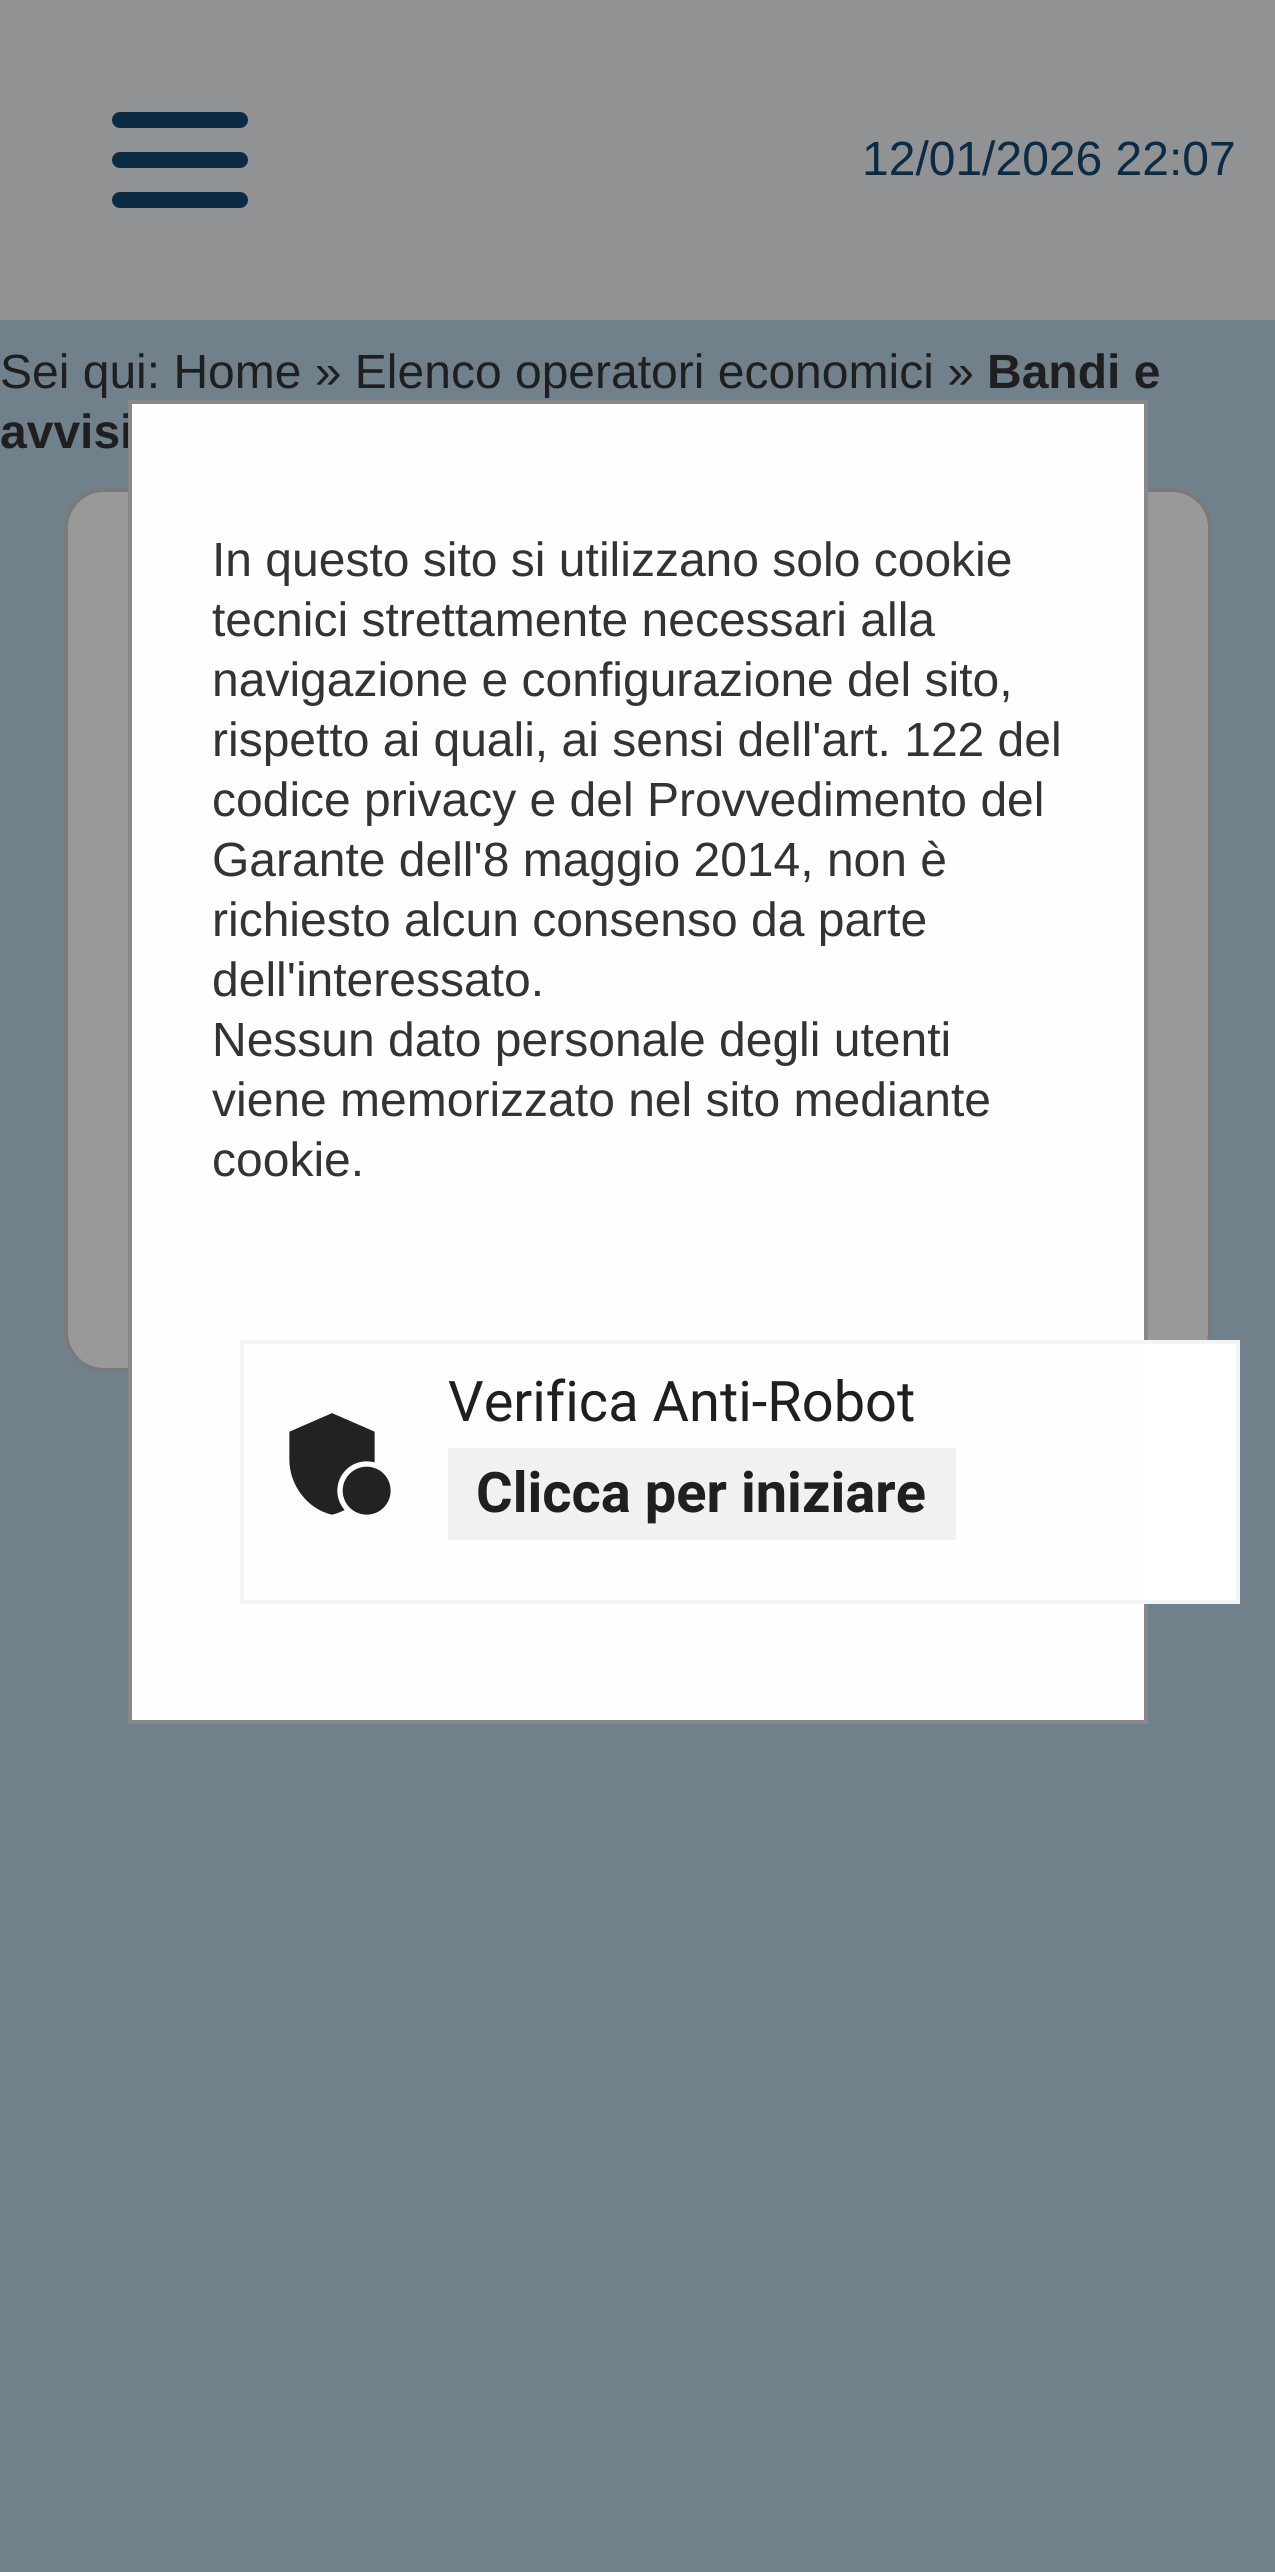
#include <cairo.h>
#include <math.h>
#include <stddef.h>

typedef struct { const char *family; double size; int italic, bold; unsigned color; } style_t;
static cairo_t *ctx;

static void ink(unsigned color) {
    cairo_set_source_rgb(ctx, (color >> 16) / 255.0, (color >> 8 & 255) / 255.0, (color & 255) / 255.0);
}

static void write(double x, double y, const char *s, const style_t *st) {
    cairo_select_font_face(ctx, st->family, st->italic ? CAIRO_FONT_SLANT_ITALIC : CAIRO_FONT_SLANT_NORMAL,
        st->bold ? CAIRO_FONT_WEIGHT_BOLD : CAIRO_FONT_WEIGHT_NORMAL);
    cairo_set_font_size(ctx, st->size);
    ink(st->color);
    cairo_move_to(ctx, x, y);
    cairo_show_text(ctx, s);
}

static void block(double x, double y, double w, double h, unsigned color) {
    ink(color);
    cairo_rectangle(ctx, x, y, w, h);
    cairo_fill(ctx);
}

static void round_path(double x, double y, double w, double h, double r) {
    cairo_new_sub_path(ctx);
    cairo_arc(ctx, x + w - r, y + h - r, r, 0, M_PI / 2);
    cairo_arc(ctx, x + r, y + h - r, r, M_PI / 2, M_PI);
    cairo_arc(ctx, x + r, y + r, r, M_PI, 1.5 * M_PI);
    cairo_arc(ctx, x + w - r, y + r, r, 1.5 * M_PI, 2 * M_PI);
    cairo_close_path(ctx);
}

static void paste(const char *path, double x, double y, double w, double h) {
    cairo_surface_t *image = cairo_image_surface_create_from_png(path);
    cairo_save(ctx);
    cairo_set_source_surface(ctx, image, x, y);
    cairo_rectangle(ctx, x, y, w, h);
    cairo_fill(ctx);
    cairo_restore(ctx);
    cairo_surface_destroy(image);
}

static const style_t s1 = {"Liberation Sans", 48, 0, 0, 0x0c2b45};
static const style_t s2 = {"Liberation Sans", 48, 0, 0, 0x1f1f1f};
static const style_t s3 = {"Liberation Sans", 48, 0, 1, 0x1f1f1f};
static const style_t s4 = {"Liberation Sans", 48, 0, 0, 0x333333};
static const style_t s5 = {"Roboto", 56, 0, 0, 0x1f1f1f};
static const style_t s6 = {"Roboto", 56, 0, 1, 0x1f1f1f};

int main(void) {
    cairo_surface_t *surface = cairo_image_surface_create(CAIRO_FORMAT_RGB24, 1275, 2572);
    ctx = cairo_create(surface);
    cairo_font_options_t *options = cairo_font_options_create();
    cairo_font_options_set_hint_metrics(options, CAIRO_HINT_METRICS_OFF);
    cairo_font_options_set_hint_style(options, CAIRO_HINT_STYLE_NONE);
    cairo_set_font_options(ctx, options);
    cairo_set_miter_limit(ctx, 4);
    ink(0x70818b);
    cairo_paint(ctx);
    block(0, 0, 1275, 320, 0x909294);
    ink(0x0c2b45);
    round_path(112, 112, 136, 16, 8);
    cairo_fill(ctx);
    round_path(112, 152, 136, 16, 8);
    cairo_fill(ctx);
    round_path(112, 192, 136, 16, 8);
    cairo_fill(ctx);
    write(862, 175, "12/01/2026 22:07", &s1);
    write(0, 388, "Sei qui: Home » Elenco operatori economici »", &s2);
    write(987, 388, "Bandi e", &s3);
    write(0, 448, "avvisi", &s3);
    ink(0x999999);
    round_path(66, 490, 1144, 880, 38);
    cairo_fill_preserve(ctx);
    ink(0x7a7a7a);
    cairo_set_line_width(ctx, 4);
    cairo_stroke(ctx);
    ink(0xfefefe);
    cairo_rectangle(ctx, 130, 402, 1016, 1320);
    cairo_fill_preserve(ctx);
    ink(0x888888);
    cairo_stroke(ctx);
    write(212, 576, "In questo sito si utilizzano solo cookie", &s4);
    write(212, 636, "tecnici strettamente necessari alla", &s4);
    write(212, 696, "navigazione e configurazione del sito,", &s4);
    write(212, 756, "rispetto ai quali, ai sensi dell'art. 122 del", &s4);
    write(212, 816, "codice privacy e del Provvedimento del", &s4);
    write(212, 876, "Garante dell'8 maggio 2014, non è", &s4);
    write(212, 936, "richiesto alcun consenso da parte", &s4);
    write(212, 996, "dell'interessato.", &s4);
    write(212, 1056, "Nessun dato personale degli utenti", &s4);
    write(212, 1116, "viene memorizzato nel sito mediante", &s4);
    write(212, 1176, "cookie.", &s4);
    block(1144, 1344, 92, 256, 0xffffff);
    cairo_rectangle(ctx, 242, 1342, 996, 260);
    ink(0xf4f4f4);
    cairo_stroke(ctx);
    paste("pic1.png", 289, 1413, 102, 102);
    write(448, 1421, "Verifica Anti-Robot", &s5);
    block(448, 1448, 508, 92, 0xf1f1f1);
    write(476, 1512, "Clicca per iniziare", &s6);
    cairo_surface_write_to_png(surface, "screenshot.png");
    cairo_font_options_destroy(options);
    cairo_destroy(ctx);
    cairo_surface_destroy(surface);
    return 0;
}
